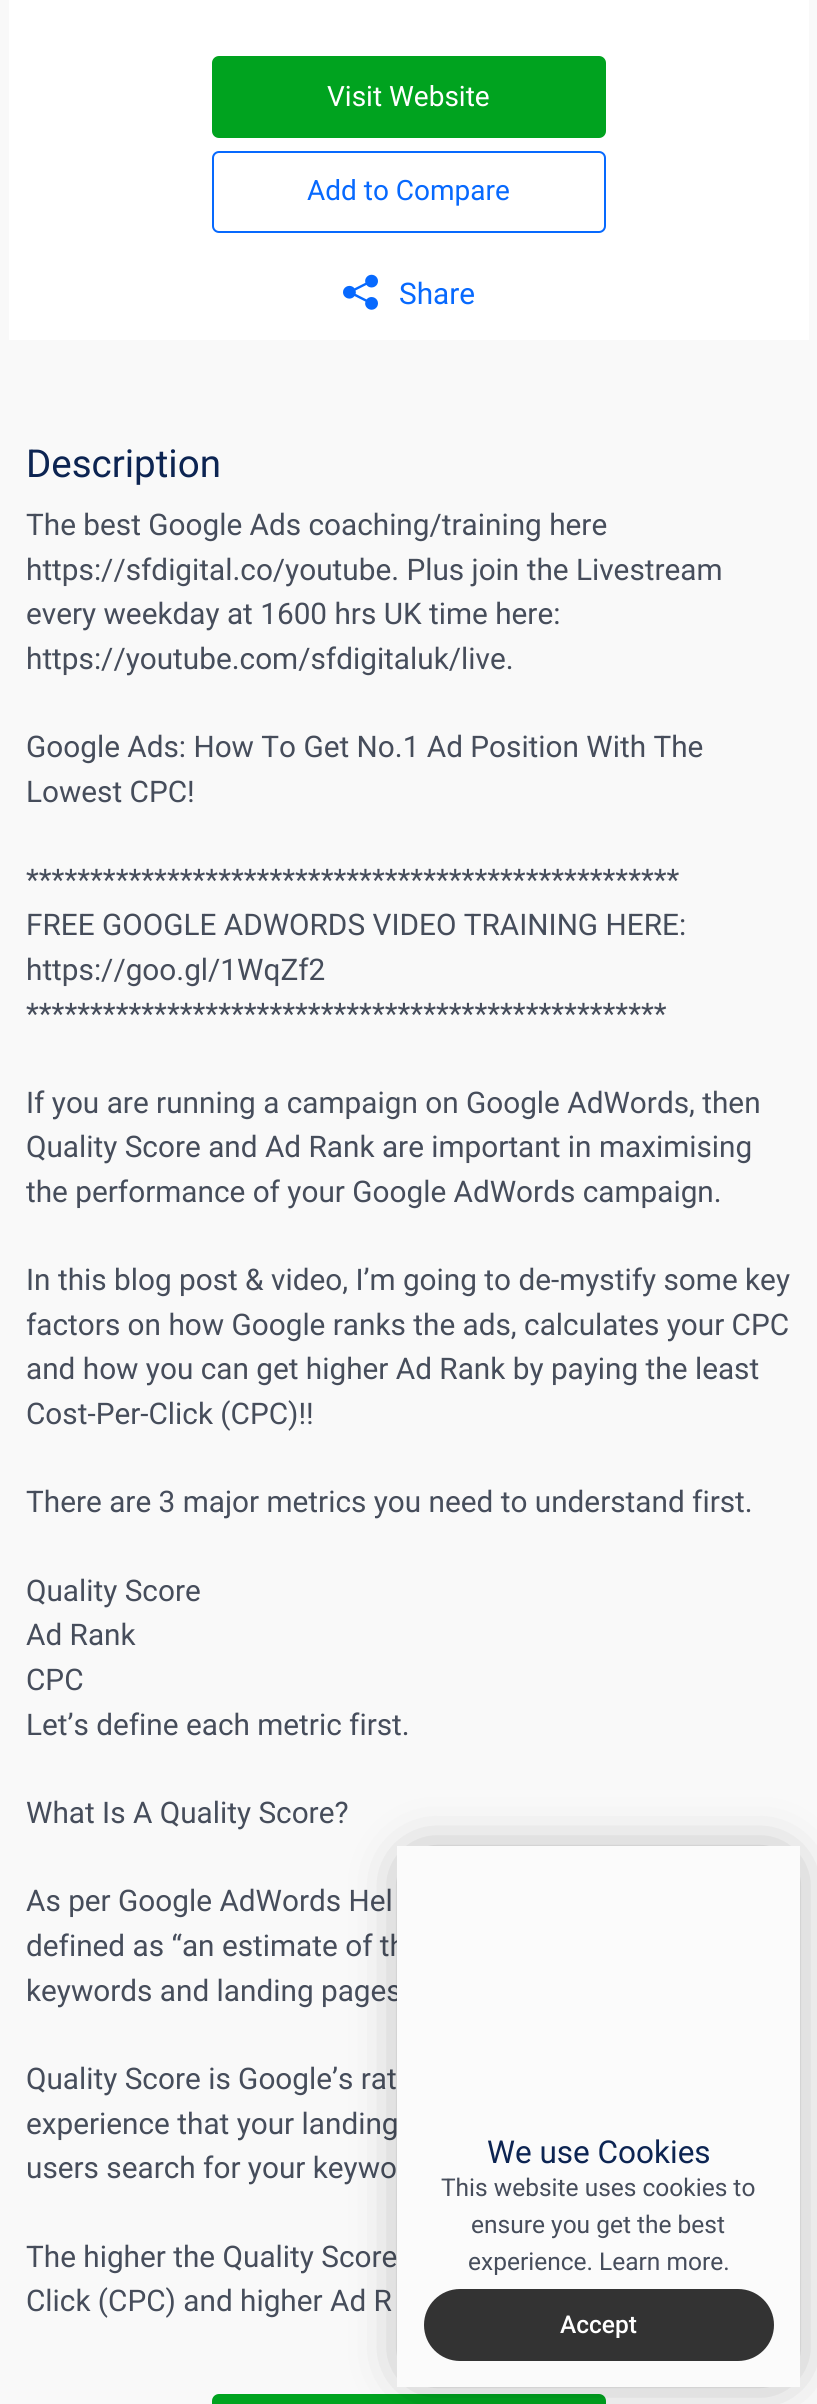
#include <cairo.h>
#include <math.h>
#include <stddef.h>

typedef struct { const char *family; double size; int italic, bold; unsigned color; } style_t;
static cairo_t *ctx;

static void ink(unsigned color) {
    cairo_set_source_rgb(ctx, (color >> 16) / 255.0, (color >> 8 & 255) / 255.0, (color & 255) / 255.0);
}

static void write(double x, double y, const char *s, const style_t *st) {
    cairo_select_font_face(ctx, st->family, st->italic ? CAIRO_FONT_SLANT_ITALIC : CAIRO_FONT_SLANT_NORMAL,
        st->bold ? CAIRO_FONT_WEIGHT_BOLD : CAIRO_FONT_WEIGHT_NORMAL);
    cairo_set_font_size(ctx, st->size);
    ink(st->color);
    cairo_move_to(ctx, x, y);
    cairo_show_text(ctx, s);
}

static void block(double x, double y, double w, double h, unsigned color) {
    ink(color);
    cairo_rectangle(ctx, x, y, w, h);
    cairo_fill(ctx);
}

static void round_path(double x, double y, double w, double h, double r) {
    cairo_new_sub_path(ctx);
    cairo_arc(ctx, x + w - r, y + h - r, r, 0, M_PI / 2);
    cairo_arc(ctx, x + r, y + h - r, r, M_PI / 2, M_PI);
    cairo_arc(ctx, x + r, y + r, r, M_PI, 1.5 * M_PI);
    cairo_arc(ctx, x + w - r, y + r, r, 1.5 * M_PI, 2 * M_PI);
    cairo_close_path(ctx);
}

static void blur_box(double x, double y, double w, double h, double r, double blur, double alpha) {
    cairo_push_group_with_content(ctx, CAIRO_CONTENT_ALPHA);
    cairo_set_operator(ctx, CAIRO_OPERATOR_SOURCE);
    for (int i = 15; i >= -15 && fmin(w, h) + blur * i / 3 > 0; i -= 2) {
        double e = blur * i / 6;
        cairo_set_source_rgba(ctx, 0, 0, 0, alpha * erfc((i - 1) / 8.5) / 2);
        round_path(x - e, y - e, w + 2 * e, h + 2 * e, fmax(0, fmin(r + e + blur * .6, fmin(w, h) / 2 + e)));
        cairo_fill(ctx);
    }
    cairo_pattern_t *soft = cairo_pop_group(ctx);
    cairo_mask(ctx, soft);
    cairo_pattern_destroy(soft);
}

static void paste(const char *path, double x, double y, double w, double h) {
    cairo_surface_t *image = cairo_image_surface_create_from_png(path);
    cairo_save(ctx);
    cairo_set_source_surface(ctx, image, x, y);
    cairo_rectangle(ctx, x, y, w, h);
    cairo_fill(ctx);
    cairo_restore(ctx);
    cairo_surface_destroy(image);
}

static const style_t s1 = {"Roboto", 28, 0, 0, 0xffffff};
static const style_t s2 = {"Roboto", 28, 0, 0, 0x0769fe};
static const style_t s3 = {"Roboto", 29.75, 0, 0, 0x0769fe};
static const style_t s4 = {"Roboto", 38.5, 0, 0, 0x0c2452};
static const style_t s5 = {"Roboto", 29.75, 0, 0, 0x464d5b};
static const style_t s6 = {"Roboto", 31.5, 0, 0, 0x0c2452};
static const style_t s7 = {"Roboto", 24.5, 0, 0, 0x464d5b};
static const style_t s8 = {"Roboto Medium", 24.5, 0, 0, 0xffffff};

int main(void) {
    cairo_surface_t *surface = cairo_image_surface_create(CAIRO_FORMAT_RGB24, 817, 2404);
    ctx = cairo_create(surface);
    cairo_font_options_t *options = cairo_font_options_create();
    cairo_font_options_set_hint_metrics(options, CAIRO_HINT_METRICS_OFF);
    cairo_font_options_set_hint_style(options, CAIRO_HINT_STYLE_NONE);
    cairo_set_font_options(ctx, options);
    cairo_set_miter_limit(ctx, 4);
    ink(0xf9f9f9);
    cairo_paint(ctx);
    block(9, 0, 800, 340, 0xffffff);
    ink(0x00a31f);
    round_path(212, 56, 394, 82, 7);
    cairo_fill(ctx);
    write(327, 106, "Visit Website", &s1);
    round_path(213, 152, 392, 80, 6);
    ink(0x0769fe);
    cairo_stroke(ctx);
    write(307, 200, "Add to Compare", &s2);
    paste("pic1.png", 343, 274, 35, 36);
    write(399, 304, "Share", &s3);
    write(26, 477, "Description", &s4);
    write(26, 535, "The best Google Ads coaching/training here", &s5);
    write(26, 580, "https://sfdigital.co/youtube. Plus join the Livestream", &s5);
    write(26, 624, "every weekday at 1600 hrs UK time here:", &s5);
    write(26, 669, "https://youtube.com/sfdigitaluk/live.", &s5);
    write(26, 757, "Google Ads: How To Get No.1 Ad Position With The", &s5);
    write(26, 802, "Lowest CPC!", &s5);
    write(26, 890, "***************************************************", &s5);
    write(26, 935, "FREE GOOGLE ADWORDS VIDEO TRAINING HERE:", &s5);
    write(26, 980, "https://goo.gl/1WqZf2", &s5);
    write(26, 1024, "**************************************************", &s5);
    write(26, 1113, "If you are running a campaign on Google AdWords, then", &s5);
    write(26, 1157, "Quality Score and Ad Rank are important in maximising", &s5);
    write(26, 1202, "the performance of your Google AdWords campaign.", &s5);
    write(26, 1290, "In this blog post & video, I’m going to de-mystify some key", &s5);
    write(26, 1335, "factors on how Google ranks the ads, calculates your CPC", &s5);
    write(26, 1379, "and how you can get higher Ad Rank by paying the least", &s5);
    write(26, 1424, "Cost-Per-Click (CPC)!!", &s5);
    write(26, 1512, "There are 3 major metrics you need to understand first.", &s5);
    write(26, 1601, "Quality Score", &s5);
    write(26, 1645, "Ad Rank", &s5);
    write(26, 1690, "CPC", &s5);
    write(26, 1735, "Let’s define each metric first.", &s5);
    write(26, 1823, "What Is A Quality Score?", &s5);
    write(26, 1911, "As per Google AdWords Hel", &s5);
    write(26, 1956, "defined as “an estimate of th", &s5);
    write(26, 2001, "keywords and landing pages", &s5);
    write(26, 2089, "Quality Score is Google’s rat", &s5);
    write(26, 2134, "experience that your landing", &s5);
    write(26, 2178, "users search for your keywo", &s5);
    write(26, 2267, "The higher the Quality Score", &s5);
    write(26, 2311, "Click (CPC) and higher Ad R", &s5);
    ink(0x00a31f);
    round_path(212, 2394, 394, 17, 7);
    cairo_fill(ctx);
    ink(0x000000);
    blur_box(420, 1869, 357, 495, 0, 29, 0.6);
    block(397, 1846, 403, 541, 0xfbfbfb);
    write(487, 2163, "We use Cookies", &s6);
    write(441, 2196, "This website uses cookies to", &s7);
    write(471, 2233, "ensure you get the best", &s7);
    write(468, 2270, "experience. Learn more.", &s7);
    ink(0x333333);
    round_path(424, 2289, 350, 72, 36);
    cairo_fill(ctx);
    write(560, 2333, "Accept", &s8);
    cairo_surface_write_to_png(surface, "screenshot.png");
    cairo_font_options_destroy(options);
    cairo_destroy(ctx);
    cairo_surface_destroy(surface);
    return 0;
}
